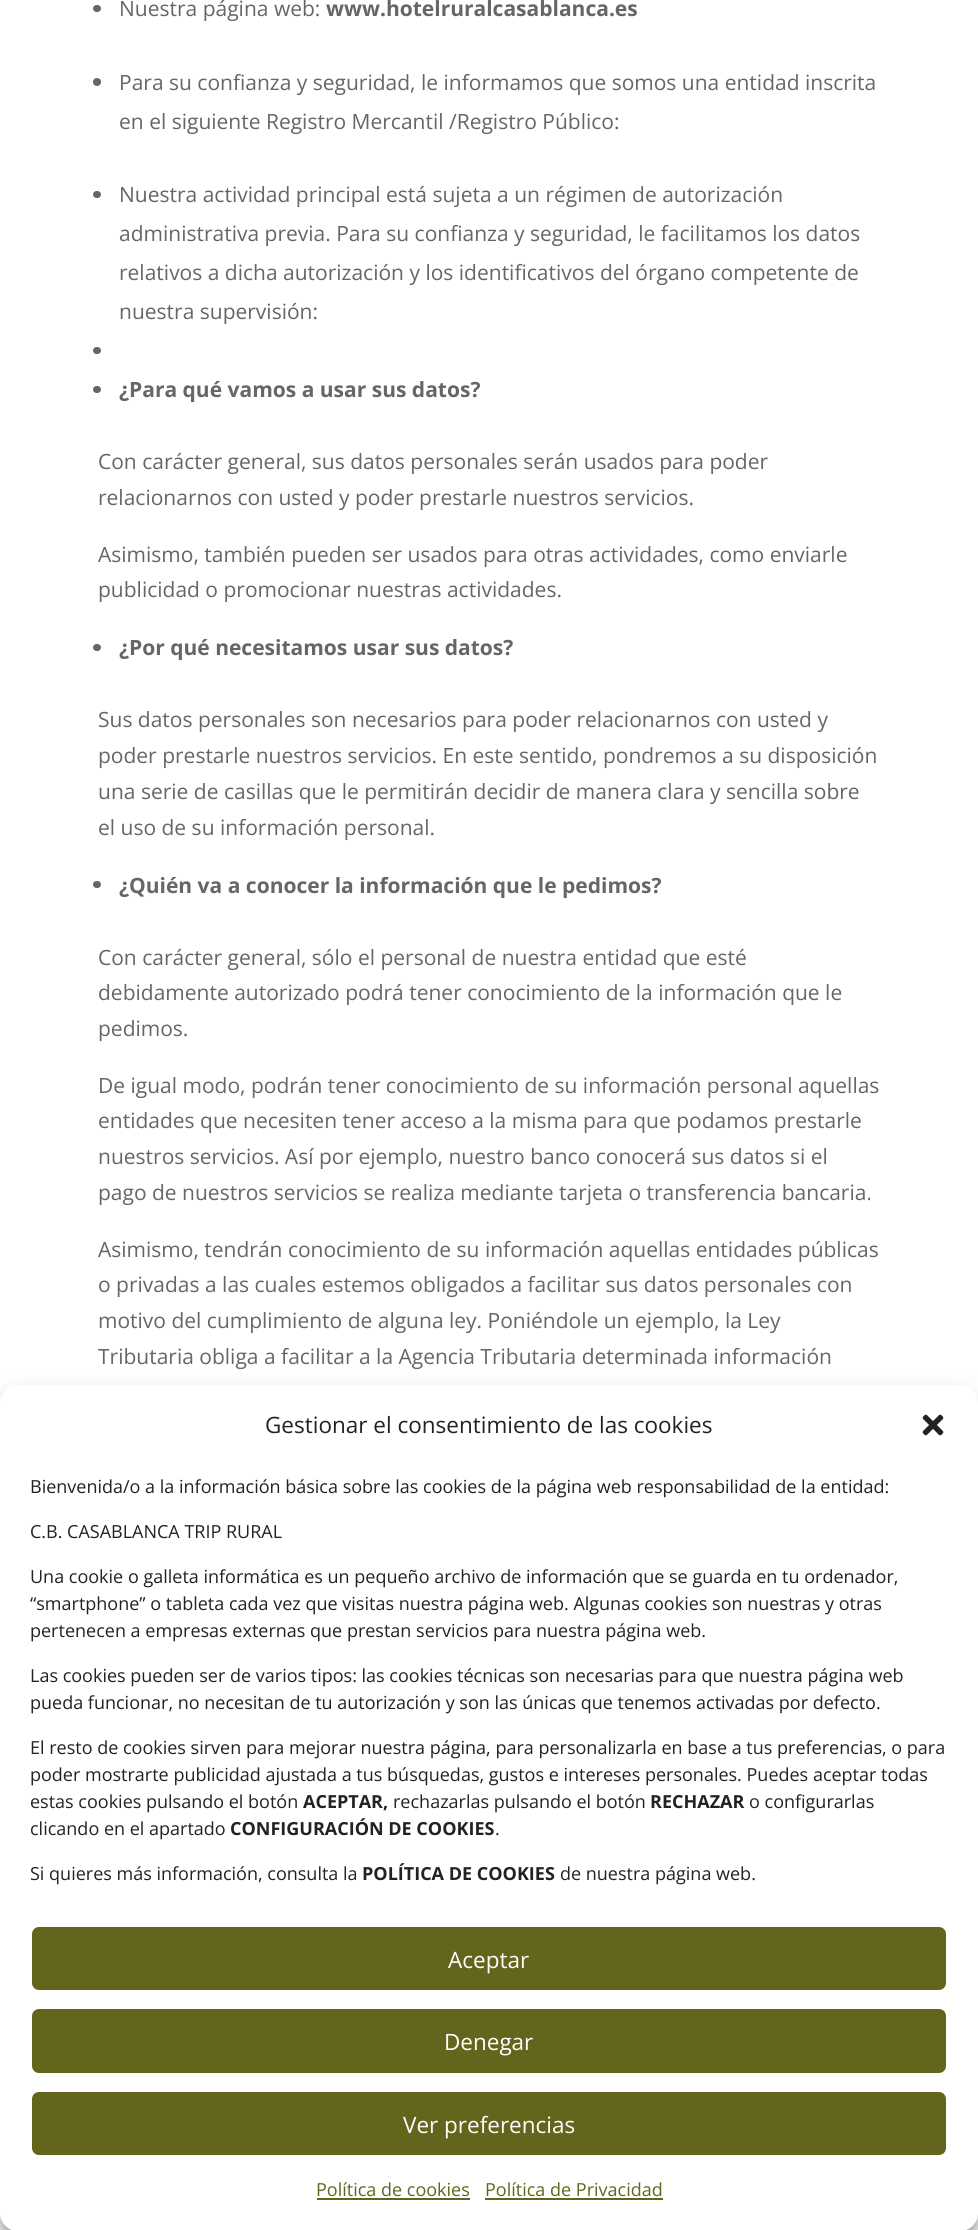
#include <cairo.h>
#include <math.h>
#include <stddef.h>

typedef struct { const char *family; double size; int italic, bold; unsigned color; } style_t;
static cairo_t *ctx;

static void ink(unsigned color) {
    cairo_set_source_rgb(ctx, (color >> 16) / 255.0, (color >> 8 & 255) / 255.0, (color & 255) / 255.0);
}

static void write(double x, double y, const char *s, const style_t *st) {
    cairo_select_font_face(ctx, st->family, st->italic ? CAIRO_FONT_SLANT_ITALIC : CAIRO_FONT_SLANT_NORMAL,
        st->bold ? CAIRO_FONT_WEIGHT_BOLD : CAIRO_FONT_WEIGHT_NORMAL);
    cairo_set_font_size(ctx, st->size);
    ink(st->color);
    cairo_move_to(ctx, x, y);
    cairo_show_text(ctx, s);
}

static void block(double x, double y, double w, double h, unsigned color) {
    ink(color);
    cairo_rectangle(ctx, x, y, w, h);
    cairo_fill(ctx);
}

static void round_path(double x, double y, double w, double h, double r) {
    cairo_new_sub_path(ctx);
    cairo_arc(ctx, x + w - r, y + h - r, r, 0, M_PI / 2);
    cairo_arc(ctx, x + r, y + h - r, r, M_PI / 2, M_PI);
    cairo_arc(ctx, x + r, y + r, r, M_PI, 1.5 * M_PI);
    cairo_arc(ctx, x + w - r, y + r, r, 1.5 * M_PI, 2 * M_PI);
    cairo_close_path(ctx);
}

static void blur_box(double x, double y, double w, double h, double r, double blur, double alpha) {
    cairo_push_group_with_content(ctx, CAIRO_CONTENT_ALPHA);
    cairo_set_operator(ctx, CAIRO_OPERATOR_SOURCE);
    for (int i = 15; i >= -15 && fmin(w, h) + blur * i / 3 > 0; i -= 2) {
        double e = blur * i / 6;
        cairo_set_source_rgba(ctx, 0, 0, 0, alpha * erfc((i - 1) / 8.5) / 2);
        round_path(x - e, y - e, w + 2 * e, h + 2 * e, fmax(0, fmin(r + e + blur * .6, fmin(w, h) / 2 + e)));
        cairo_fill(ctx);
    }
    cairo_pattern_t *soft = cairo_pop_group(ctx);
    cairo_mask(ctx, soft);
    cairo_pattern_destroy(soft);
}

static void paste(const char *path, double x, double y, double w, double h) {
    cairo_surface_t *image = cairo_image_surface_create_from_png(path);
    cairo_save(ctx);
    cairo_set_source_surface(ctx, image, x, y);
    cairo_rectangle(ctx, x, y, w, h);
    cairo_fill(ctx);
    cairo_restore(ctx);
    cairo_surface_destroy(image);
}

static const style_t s1 = {"Open Sans", 21, 0, 0, 0x666666};
static const style_t s2 = {"Open Sans", 21, 0, 1, 0x666666};
static const style_t s3 = {"Open Sans", 22.5, 0, 0, 0x222222};
static const style_t s4 = {"Open Sans", 18, 0, 0, 0x222222};
static const style_t s5 = {"Open Sans", 18, 0, 1, 0x222222};
static const style_t s6 = {"Open Sans", 22.5, 0, 0, 0xffffff};
static const style_t s7 = {"Open Sans", 18, 0, 0, 0x63651c};

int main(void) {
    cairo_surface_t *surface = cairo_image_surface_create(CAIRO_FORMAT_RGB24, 978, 2230);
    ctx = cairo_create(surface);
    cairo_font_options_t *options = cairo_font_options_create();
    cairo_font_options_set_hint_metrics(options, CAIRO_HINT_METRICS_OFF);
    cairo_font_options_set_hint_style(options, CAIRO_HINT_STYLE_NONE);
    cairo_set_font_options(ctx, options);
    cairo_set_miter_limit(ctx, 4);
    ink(0xffffff);
    cairo_paint(ctx);
    ink(0x666666);
    round_path(93, 5, 8, 7, 3.5);
    cairo_fill(ctx);
    write(119, 16, "Nuestra página web:", &s1);
    write(326, 16, "www.hotelruralcasablanca.es", &s2);
    cairo_new_path(ctx);
    cairo_arc(ctx, 97, 82, 4, 0, 2 * M_PI);
    cairo_fill(ctx);
    write(119, 90, "Para su confianza y seguridad, le informamos que somos una entidad inscrita", &s1);
    write(119, 129, "en el siguiente Registro Mercantil /Registro Público:", &s1);
    round_path(93, 191, 8, 7, 3.5);
    cairo_fill(ctx);
    write(119, 202, "Nuestra actividad principal está sujeta a un régimen de autorización", &s1);
    write(119, 241, "administrativa previa. Para su confianza y seguridad, le facilitamos los datos", &s1);
    write(119, 280, "relativos a dicha autorización y los identificativos del órgano competente de", &s1);
    write(119, 319, "nuestra supervisión:", &s1);
    round_path(93, 347, 8, 7, 3.5);
    cairo_fill(ctx);
    round_path(93, 386, 8, 7, 3.5);
    cairo_fill(ctx);
    write(119, 397, "¿Para qué vamos a usar sus datos?", &s2);
    write(98, 469, "Con carácter general, sus datos personales serán usados para poder", &s1);
    write(98, 505, "relacionarnos con usted y poder prestarle nuestros servicios.", &s1);
    write(98, 562, "Asimismo, también pueden ser usados para otras actividades, como enviarle", &s1);
    write(98, 597, "publicidad o promocionar nuestras actividades.", &s1);
    round_path(93, 644, 8, 7, 3.5);
    cairo_fill(ctx);
    write(119, 655, "¿Por qué necesitamos usar sus datos?", &s2);
    write(98, 727, "Sus datos personales son necesarios para poder relacionarnos con usted y", &s1);
    write(98, 763, "poder prestarle nuestros servicios. En este sentido, pondremos a su disposición", &s1);
    write(98, 799, "una serie de casillas que le permitirán decidir de manera clara y sencilla sobre", &s1);
    write(98, 835, "el uso de su información personal.", &s1);
    round_path(93, 881, 8, 7, 3.5);
    cairo_fill(ctx);
    write(119, 893, "¿Quién va a conocer la información que le pedimos?", &s2);
    write(98, 965, "Con carácter general, sólo el personal de nuestra entidad que esté", &s1);
    write(98, 1000, "debidamente autorizado podrá tener conocimiento de la información que le", &s1);
    write(98, 1036, "pedimos.", &s1);
    write(98, 1093, "De igual modo, podrán tener conocimiento de su información personal aquellas", &s1);
    write(98, 1128, "entidades que necesiten tener acceso a la misma para que podamos prestarle", &s1);
    write(98, 1164, "nuestros servicios. Así por ejemplo, nuestro banco conocerá sus datos si el", &s1);
    write(98, 1200, "pago de nuestros servicios se realiza mediante tarjeta o transferencia bancaria.", &s1);
    write(98, 1257, "Asimismo, tendrán conocimiento de su información aquellas entidades públicas", &s1);
    write(98, 1292, "o privadas a las cuales estemos obligados a facilitar sus datos personales con", &s1);
    write(98, 1328, "motivo del cumplimiento de alguna ley. Poniéndole un ejemplo, la Ley", &s1);
    write(98, 1364, "Tributaria obliga a facilitar a la Agencia Tributaria determinada información", &s1);
    ink(0x000000);
    blur_box(0, 1394, 978, 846, 18, 4.5, 0.23);
    blur_box(0, 1400, 978, 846, 18, 15, 0.19);
    ink(0xffffff);
    round_path(0, 1385, 978, 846, 18);
    cairo_fill(ctx);
    write(265, 1433, "Gestionar el consentimiento de las cookies", &s3);
    paste("pic1.png", 922, 1414, 22, 22);
    write(30, 1493, "Bienvenida/o a la información básica sobre las cookies de la página web responsabilidad de la entidad:", &s4);
    write(30, 1538, "C.B. CASABLANCA TRIP RURAL", &s4);
    write(30, 1583, "Una cookie o galleta informática es un pequeño archivo de información que se guarda en tu ordenador,", &s4);
    write(30, 1610, "“smartphone” o tableta cada vez que visitas nuestra página web. Algunas cookies son nuestras y otras", &s4);
    write(30, 1637, "pertenecen a empresas externas que prestan servicios para nuestra página web.", &s4);
    write(30, 1682, "Las cookies pueden ser de varios tipos: las cookies técnicas son necesarias para que nuestra página web", &s4);
    write(30, 1709, "pueda funcionar, no necesitan de tu autorización y son las únicas que tenemos activadas por defecto.", &s4);
    write(30, 1754, "El resto de cookies sirven para mejorar nuestra página, para personalizarla en base a tus preferencias, o para", &s4);
    write(30, 1781, "poder mostrarte publicidad ajustada a tus búsquedas, gustos e intereses personales. Puedes aceptar todas", &s4);
    write(30, 1808, "estas cookies pulsando el botón", &s4);
    write(303, 1808, "ACEPTAR,", &s5);
    write(393, 1808, "rechazarlas pulsando el botón", &s4);
    write(650, 1808, "RECHAZAR", &s5);
    write(749, 1808, "o configurarlas", &s4);
    write(30, 1835, "clicando en el apartado", &s4);
    write(230, 1835, "CONFIGURACIÓN DE COOKIES", &s5);
    write(495, 1835, ".", &s4);
    write(30, 1880, "Si quieres más información, consulta la", &s4);
    write(362, 1880, "POLÍTICA DE COOKIES", &s5);
    write(560, 1880, "de nuestra página web.", &s4);
    ink(0x63651c);
    round_path(31, 1926, 916, 65, 8);
    cairo_fill_preserve(ctx);
    ink(0xffffff);
    cairo_stroke(ctx);
    write(448, 1968, "Aceptar", &s6);
    ink(0x63651c);
    round_path(31, 2008, 916, 66, 8);
    cairo_fill_preserve(ctx);
    ink(0xffffff);
    cairo_stroke(ctx);
    write(444, 2050, "Denegar", &s6);
    ink(0x63651c);
    round_path(31, 2091, 916, 65, 8);
    cairo_fill_preserve(ctx);
    ink(0xffffff);
    cairo_stroke(ctx);
    write(403, 2133, "Ver preferencias", &s6);
    write(316, 2196, "Política de cookies", &s7);
    block(317, 2198, 153, 2, 0x63651c);
    write(485, 2196, "Política de Privacidad", &s7);
    block(485, 2198, 178, 2, 0x63651c);
    cairo_surface_write_to_png(surface, "screenshot.png");
    cairo_font_options_destroy(options);
    cairo_destroy(ctx);
    cairo_surface_destroy(surface);
    return 0;
}
